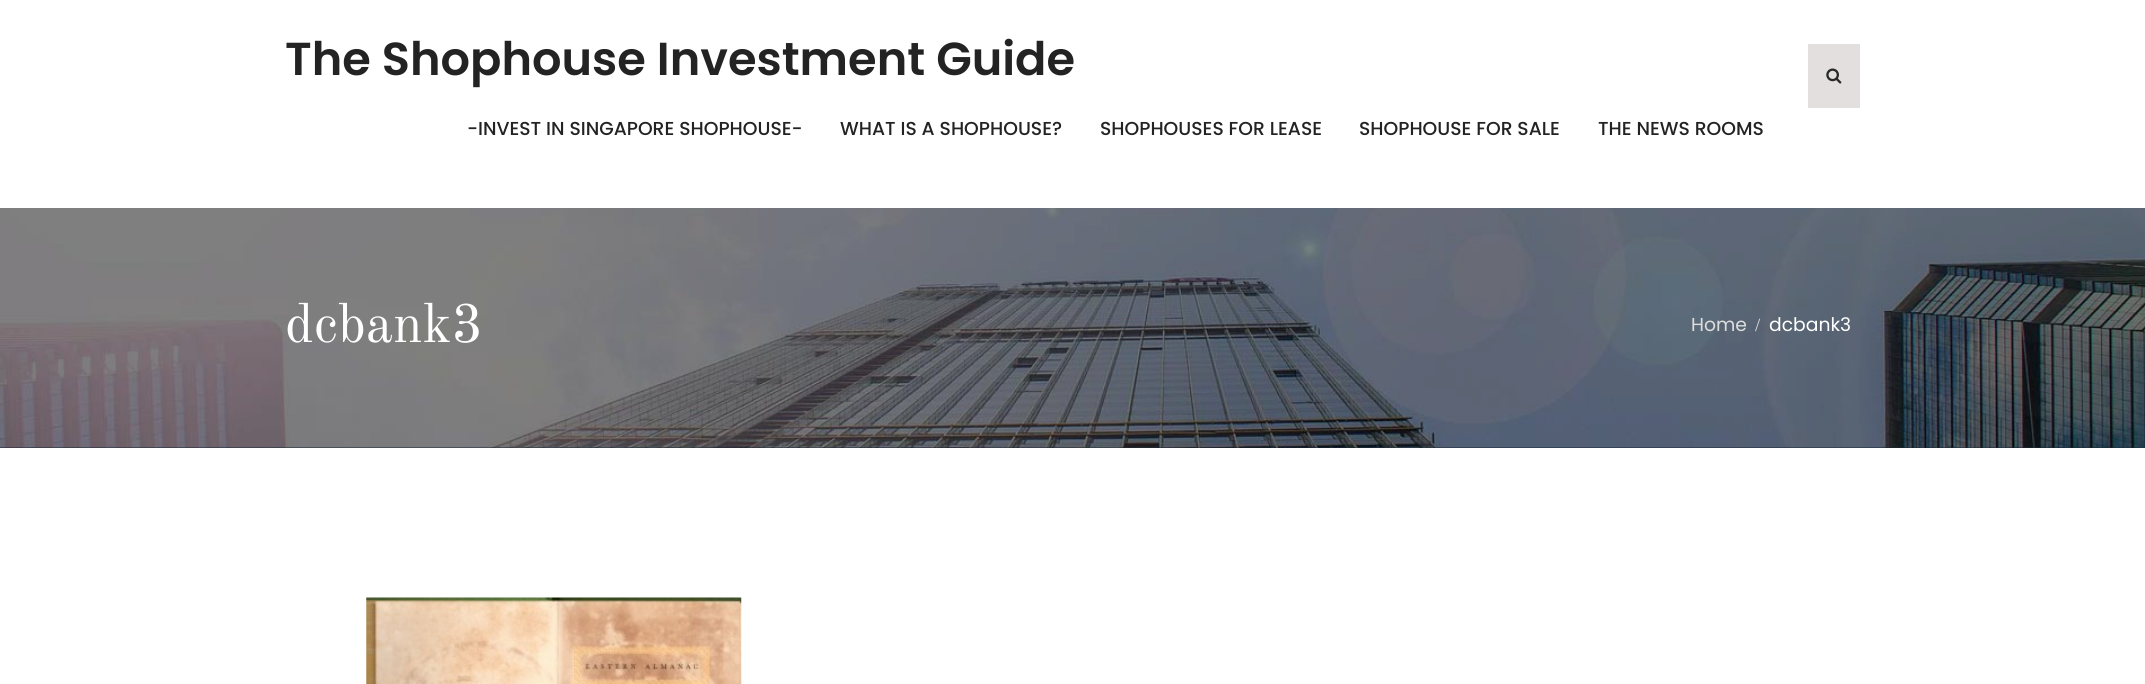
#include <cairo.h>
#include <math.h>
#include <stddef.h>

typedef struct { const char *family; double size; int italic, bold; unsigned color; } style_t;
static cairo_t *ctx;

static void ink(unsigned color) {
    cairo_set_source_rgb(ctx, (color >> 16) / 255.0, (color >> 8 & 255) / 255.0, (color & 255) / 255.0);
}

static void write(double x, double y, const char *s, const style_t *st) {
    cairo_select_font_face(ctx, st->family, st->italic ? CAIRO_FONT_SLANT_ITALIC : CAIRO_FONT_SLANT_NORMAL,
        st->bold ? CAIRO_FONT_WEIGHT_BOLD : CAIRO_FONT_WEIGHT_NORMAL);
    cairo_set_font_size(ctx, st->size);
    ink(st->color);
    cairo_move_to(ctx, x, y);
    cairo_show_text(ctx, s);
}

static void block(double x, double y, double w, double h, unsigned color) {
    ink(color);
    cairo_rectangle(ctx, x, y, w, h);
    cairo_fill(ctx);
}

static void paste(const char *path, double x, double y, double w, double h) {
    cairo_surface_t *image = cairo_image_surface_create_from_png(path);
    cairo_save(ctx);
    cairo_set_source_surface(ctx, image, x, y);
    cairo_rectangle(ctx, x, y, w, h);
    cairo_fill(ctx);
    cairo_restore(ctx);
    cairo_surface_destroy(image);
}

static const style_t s1 = {"Poppins SemiBold", 46.25, 0, 0, 0x232323};
static const style_t s2 = {"Poppins Medium", 18.75, 0, 0, 0x232323};
static const style_t s3 = {"Old Standard TT", 55, 0, 0, 0xffffff};
static const style_t s4 = {"Poppins", 18.75, 0, 0, 0xdddddd};
static const style_t s5 = {"Liberation Serif", 18.75, 0, 0, 0xdddddd};
static const style_t s6 = {"Poppins", 18.75, 0, 0, 0xffffff};

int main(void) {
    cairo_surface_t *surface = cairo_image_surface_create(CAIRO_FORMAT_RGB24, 2145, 684);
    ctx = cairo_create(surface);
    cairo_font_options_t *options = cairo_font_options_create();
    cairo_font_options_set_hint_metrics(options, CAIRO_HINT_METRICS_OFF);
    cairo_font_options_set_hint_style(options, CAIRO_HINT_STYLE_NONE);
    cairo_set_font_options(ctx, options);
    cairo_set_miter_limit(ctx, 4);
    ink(0xffffff);
    cairo_paint(ctx);
    write(285, 75, "The Shophouse Investment Guide", &s1);
    block(1808, 44, 52, 64, 0xe4dfdf);
    paste("pic1.png", 1826, 68, 16, 16);
    write(467, 135, "-INVEST IN SINGAPORE SHOPHOUSE-", &s2);
    write(840, 135, "WHAT IS A SHOPHOUSE?", &s2);
    write(1100, 135, "SHOPHOUSES FOR LEASE", &s2);
    write(1359, 135, "SHOPHOUSE FOR SALE", &s2);
    write(1598, 135, "THE NEWS ROOMS", &s2);
    block(0, 447, 2145, 1, 0x192837);
    paste("pic2.png", 0, 208, 2145, 240);
    write(285, 342, "dcbank3", &s3);
    write(1691, 331, "Home", &s4);
    write(1755, 331, "/", &s5);
    write(1769, 331, "dcbank3", &s6);
    paste("pic3.png", 366, 597, 376, 87);
    cairo_surface_write_to_png(surface, "screenshot.png");
    cairo_font_options_destroy(options);
    cairo_destroy(ctx);
    cairo_surface_destroy(surface);
    return 0;
}
